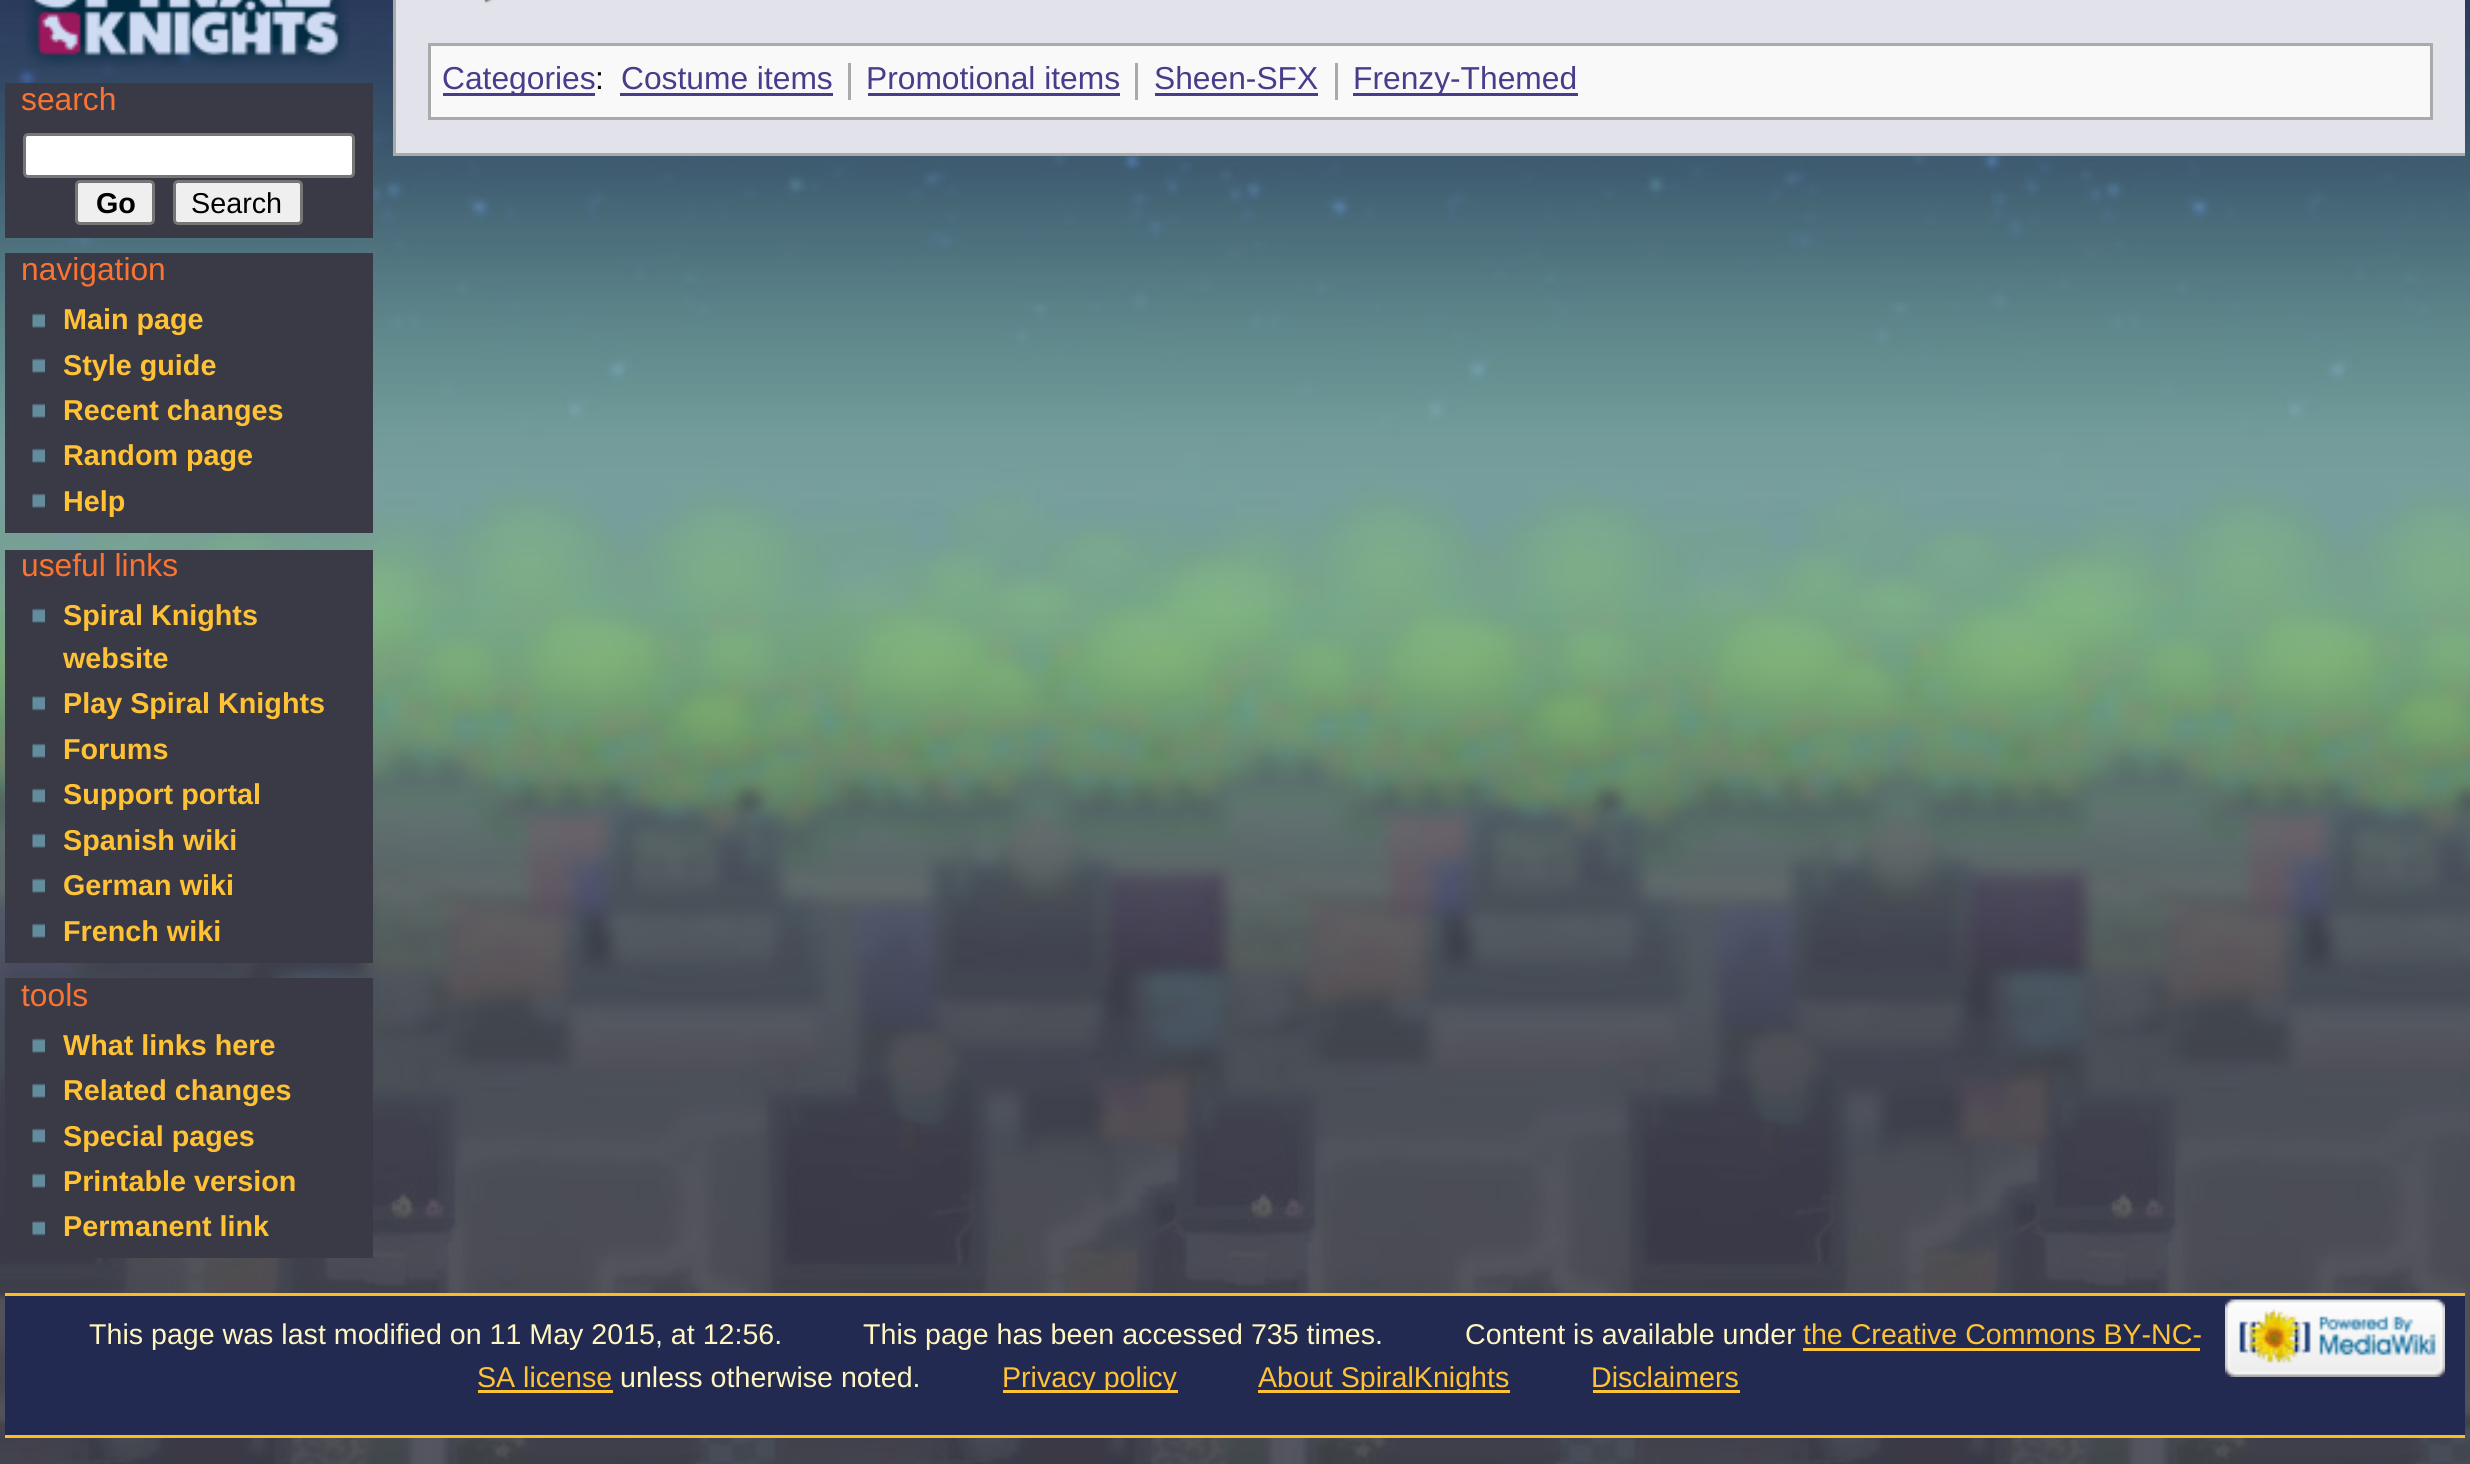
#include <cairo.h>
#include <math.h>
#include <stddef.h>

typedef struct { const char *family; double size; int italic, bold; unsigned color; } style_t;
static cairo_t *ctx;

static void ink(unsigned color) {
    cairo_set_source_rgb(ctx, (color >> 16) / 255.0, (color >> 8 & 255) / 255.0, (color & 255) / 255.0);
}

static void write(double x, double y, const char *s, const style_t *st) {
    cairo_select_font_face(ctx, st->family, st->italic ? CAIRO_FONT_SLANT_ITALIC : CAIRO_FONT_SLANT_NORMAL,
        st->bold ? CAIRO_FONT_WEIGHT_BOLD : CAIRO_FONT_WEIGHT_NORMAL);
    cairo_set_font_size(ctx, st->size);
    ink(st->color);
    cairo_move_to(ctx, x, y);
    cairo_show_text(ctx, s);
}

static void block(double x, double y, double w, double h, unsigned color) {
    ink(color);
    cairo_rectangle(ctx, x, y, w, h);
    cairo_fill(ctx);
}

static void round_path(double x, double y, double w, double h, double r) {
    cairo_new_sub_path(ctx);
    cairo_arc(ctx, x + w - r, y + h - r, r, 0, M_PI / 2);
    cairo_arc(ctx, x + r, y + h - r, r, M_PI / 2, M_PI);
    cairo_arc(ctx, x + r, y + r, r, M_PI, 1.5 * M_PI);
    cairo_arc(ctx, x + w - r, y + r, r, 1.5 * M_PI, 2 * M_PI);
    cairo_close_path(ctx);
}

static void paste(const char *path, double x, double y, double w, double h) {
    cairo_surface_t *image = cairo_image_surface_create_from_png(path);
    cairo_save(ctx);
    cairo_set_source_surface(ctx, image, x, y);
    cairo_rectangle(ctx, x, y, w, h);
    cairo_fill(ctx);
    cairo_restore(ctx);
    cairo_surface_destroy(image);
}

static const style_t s1 = {"Liberation Sans", 31.75, 0, 0, 0x483d8b};
static const style_t s2 = {"Liberation Sans", 31.75, 0, 0, 0x000000};
static const style_t s3 = {"Liberation Sans", 31.75, 0, 0, 0xf97432};
static const style_t s4 = {"Liberation Sans", 28.75, 0, 1, 0x000000};
static const style_t s5 = {"Liberation Sans", 28.75, 0, 0, 0x000000};
static const style_t s6 = {"Liberation Sans", 28.75, 0, 1, 0xffc235};
static const style_t s7 = {"Liberation Sans", 28.6, 0, 0, 0xfff6c1};
static const style_t s8 = {"Liberation Sans", 28.6, 0, 0, 0xffc235};

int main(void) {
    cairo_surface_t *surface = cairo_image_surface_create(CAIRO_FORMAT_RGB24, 2470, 1464);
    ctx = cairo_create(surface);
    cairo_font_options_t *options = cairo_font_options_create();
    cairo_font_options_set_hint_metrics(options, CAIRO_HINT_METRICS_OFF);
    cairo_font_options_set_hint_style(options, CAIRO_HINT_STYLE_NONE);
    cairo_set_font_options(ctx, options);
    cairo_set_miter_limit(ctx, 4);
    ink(0xffffff);
    cairo_paint(ctx);
    paste("pic1.png", 0, 0, 2470, 1464);
    block(396, 0, 2069, 153, 0xe2e2eb);
    block(393, 153, 2072, 3, 0xaaaaaa);
    block(393, 0, 3, 155, 0xaaaaaa);
    paste("pic2.png", 484, 0, 10, 3);
    ink(0xf9f9f9);
    cairo_rectangle(ctx, 429.5, 44.5, 2002, 74);
    cairo_fill_preserve(ctx);
    ink(0xaaaaaa);
    cairo_set_line_width(ctx, 3);
    cairo_stroke(ctx);
    block(443, 93, 152, 3, 0x483d8b);
    write(442, 89, "Categories", &s1);
    write(595, 89, ":", &s2);
    write(621, 89, "Costume items", &s1);
    block(620, 93, 213, 3, 0x483d8b);
    block(848, 63, 3, 37, 0xaaaaaa);
    write(866, 89, "Promotional items", &s1);
    block(868, 93, 252, 3, 0x483d8b);
    block(1135, 63, 3, 37, 0xaaaaaa);
    write(1154, 89, "Sheen-SFX", &s1);
    block(1155, 93, 163, 3, 0x483d8b);
    block(1335, 63, 3, 37, 0xaaaaaa);
    block(1353, 93, 225, 3, 0x483d8b);
    write(1353, 89, "Frenzy-Themed", &s1);
    paste("pic3.png", 25, 0, 325, 68);
    block(5, 83, 368, 155, 0x3a3a47);
    write(21, 110, "search", &s3);
    ink(0xffffff);
    round_path(24.5, 134.5, 329, 42, 3.5);
    cairo_fill_preserve(ctx);
    ink(0x767676);
    cairo_stroke(ctx);
    ink(0xefefef);
    round_path(76.5, 181.5, 77, 42, 3.5);
    cairo_fill_preserve(ctx);
    ink(0x767676);
    cairo_stroke(ctx);
    write(96, 213, "Go", &s4);
    ink(0xefefef);
    round_path(174.5, 181.5, 127, 42, 3.5);
    cairo_fill_preserve(ctx);
    ink(0x767676);
    cairo_stroke(ctx);
    write(191, 213, "Search", &s5);
    block(5, 253, 368, 280, 0x3a3a47);
    write(21, 280, "navigation", &s3);
    paste("pic4.png", 32, 313, 13, 15);
    write(63, 329, "Main page", &s6);
    paste("pic4.png", 32, 358, 13, 15);
    write(63, 375, "Style guide", &s6);
    paste("pic4.png", 32, 403, 13, 15);
    write(63, 420, "Recent changes", &s6);
    paste("pic4.png", 32, 448, 13, 15);
    write(63, 465, "Random page", &s6);
    paste("pic4.png", 32, 493, 13, 15);
    write(63, 511, "Help", &s6);
    block(5, 550, 368, 413, 0x3a3a47);
    write(21, 576, "useful links", &s3);
    paste("pic4.png", 32, 608, 13, 15);
    write(63, 625, "Spiral Knights", &s6);
    write(63, 668, "website", &s6);
    paste("pic5.png", 32, 696, 13, 15);
    write(63, 713, "Play Spiral Knights", &s6);
    paste("pic4.png", 32, 743, 13, 15);
    write(63, 759, "Forums", &s6);
    paste("pic4.png", 32, 788, 13, 15);
    write(63, 804, "Support portal", &s6);
    paste("pic4.png", 32, 833, 13, 15);
    write(63, 850, "Spanish wiki", &s6);
    paste("pic4.png", 32, 878, 13, 15);
    write(63, 895, "German wiki", &s6);
    paste("pic4.png", 32, 923, 13, 15);
    write(63, 941, "French wiki", &s6);
    block(5, 978, 368, 280, 0x3a3a47);
    write(21, 1006, "tools", &s3);
    paste("pic4.png", 32, 1038, 13, 15);
    write(63, 1055, "What links here", &s6);
    paste("pic4.png", 32, 1083, 13, 15);
    write(63, 1100, "Related changes", &s6);
    paste("pic4.png", 32, 1128, 13, 15);
    write(63, 1146, "Special pages", &s6);
    paste("pic4.png", 32, 1173, 13, 15);
    write(63, 1191, "Printable version", &s6);
    paste("pic5.png", 32, 1221, 13, 15);
    write(63, 1236, "Permanent link", &s6);
    block(5, 1296, 2460, 139, 0x222a51);
    block(5, 1293, 2460, 3, 0xfabd23);
    block(5, 1435, 2460, 3, 0xfabd23);
    write(89, 1344, "This page was last modified on 11 May 2015, at 12:56.", &s7);
    write(863, 1344, "This page has been accessed 735 times.", &s7);
    write(1465, 1344, "Content is available under", &s7);
    write(1803, 1344, "the Creative Commons BY-NC-", &s8);
    block(1803, 1348, 397, 3, 0xffc235);
    write(477, 1387, "SA license", &s8);
    block(478, 1390, 135, 3, 0xffc235);
    write(620, 1387, "unless otherwise noted.", &s7);
    block(1003, 1390, 175, 3, 0xffc235);
    write(1002, 1387, "Privacy policy", &s8);
    block(1258, 1390, 252, 3, 0xffc235);
    write(1258, 1387, "About SpiralKnights", &s8);
    write(1591, 1387, "Disclaimers", &s8);
    block(1593, 1390, 147, 3, 0xffc235);
    paste("pic6.png", 2225, 1299, 220, 78);
    cairo_surface_write_to_png(surface, "screenshot.png");
    cairo_font_options_destroy(options);
    cairo_destroy(ctx);
    cairo_surface_destroy(surface);
    return 0;
}
